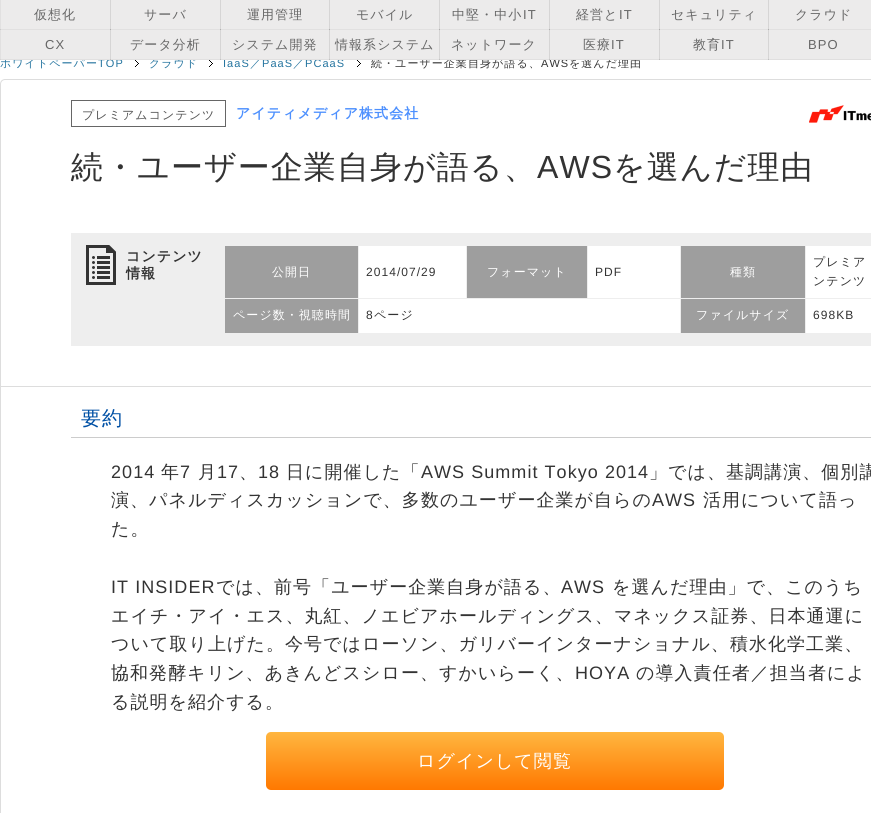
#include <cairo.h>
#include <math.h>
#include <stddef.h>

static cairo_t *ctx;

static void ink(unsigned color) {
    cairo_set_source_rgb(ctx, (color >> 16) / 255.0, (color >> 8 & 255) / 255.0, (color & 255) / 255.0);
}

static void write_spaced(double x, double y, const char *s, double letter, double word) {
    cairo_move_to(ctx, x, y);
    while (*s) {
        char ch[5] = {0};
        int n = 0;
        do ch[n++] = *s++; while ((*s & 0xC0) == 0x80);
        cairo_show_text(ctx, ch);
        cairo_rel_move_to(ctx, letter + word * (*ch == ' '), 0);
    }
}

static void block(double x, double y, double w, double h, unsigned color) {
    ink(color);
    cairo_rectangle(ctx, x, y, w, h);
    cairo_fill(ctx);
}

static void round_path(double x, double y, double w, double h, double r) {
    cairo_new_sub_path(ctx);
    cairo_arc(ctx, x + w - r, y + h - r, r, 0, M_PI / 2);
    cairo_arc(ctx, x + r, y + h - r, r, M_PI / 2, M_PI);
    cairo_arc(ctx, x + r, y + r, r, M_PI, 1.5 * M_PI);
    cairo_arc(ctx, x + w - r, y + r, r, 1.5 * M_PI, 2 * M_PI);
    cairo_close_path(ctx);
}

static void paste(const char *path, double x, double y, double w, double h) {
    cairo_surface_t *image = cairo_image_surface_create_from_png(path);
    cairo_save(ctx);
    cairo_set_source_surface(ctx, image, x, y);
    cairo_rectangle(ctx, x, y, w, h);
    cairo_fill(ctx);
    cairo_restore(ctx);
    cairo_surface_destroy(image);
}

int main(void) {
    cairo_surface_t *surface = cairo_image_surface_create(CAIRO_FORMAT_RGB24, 871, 813);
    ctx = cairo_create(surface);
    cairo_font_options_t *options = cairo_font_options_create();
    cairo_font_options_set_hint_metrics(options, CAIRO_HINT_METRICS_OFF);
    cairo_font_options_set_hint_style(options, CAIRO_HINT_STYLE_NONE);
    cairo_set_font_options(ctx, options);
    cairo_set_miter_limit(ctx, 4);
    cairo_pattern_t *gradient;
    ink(0xffffff);
    cairo_paint(ctx);
    cairo_select_font_face(ctx, "WenQuanYi Zen Hei Medium", CAIRO_FONT_SLANT_NORMAL, CAIRO_FONT_WEIGHT_NORMAL);
    cairo_set_font_size(ctx, 11);
    ink(0x24749f);
    write_spaced(0, 67, "ホワイトペーパー", 1.05, 0);
    cairo_select_font_face(ctx, "Liberation Sans", CAIRO_FONT_SLANT_NORMAL, CAIRO_FONT_WEIGHT_NORMAL);
    write_spaced(98, 67, "TOP", 1.05, 0);
    cairo_select_font_face(ctx, "WenQuanYi Zen Hei Medium", CAIRO_FONT_SLANT_NORMAL, CAIRO_FONT_WEIGHT_NORMAL);
    write_spaced(149, 67, "クラウド", 1.05, 0);
    cairo_select_font_face(ctx, "Liberation Sans", CAIRO_FONT_SLANT_NORMAL, CAIRO_FONT_WEIGHT_NORMAL);
    write_spaced(223, 67, "IaaS", 1.05, 0);
    cairo_select_font_face(ctx, "WenQuanYi Zen Hei Medium", CAIRO_FONT_SLANT_NORMAL, CAIRO_FONT_WEIGHT_NORMAL);
    write_spaced(250, 67, "／", 1.05, 0);
    cairo_select_font_face(ctx, "Liberation Sans", CAIRO_FONT_SLANT_NORMAL, CAIRO_FONT_WEIGHT_NORMAL);
    write_spaced(262, 67, "PaaS", 1.05, 0);
    cairo_select_font_face(ctx, "WenQuanYi Zen Hei Medium", CAIRO_FONT_SLANT_NORMAL, CAIRO_FONT_WEIGHT_NORMAL);
    write_spaced(293, 67, "／", 1.05, 0);
    cairo_select_font_face(ctx, "Liberation Sans", CAIRO_FONT_SLANT_NORMAL, CAIRO_FONT_WEIGHT_NORMAL);
    write_spaced(305, 67, "PCaaS", 1.05, 0);
    cairo_select_font_face(ctx, "WenQuanYi Zen Hei Medium", CAIRO_FONT_SLANT_NORMAL, CAIRO_FONT_WEIGHT_NORMAL);
    ink(0x333333);
    write_spaced(371, 67, "続・ユーザー企業自身が語る、", 1.05, 0);
    cairo_select_font_face(ctx, "Liberation Sans", CAIRO_FONT_SLANT_NORMAL, CAIRO_FONT_WEIGHT_NORMAL);
    write_spaced(541, 67, "AWS", 1.05, 0);
    cairo_select_font_face(ctx, "WenQuanYi Zen Hei Medium", CAIRO_FONT_SLANT_NORMAL, CAIRO_FONT_WEIGHT_NORMAL);
    write_spaced(569, 67, "を選んだ理由", 1.05, 0);
    block(0, 0, 871, 60, 0xecebeb);
    block(768, 59, 103, 1, 0xe0dfdf);
    cairo_set_source_rgba(ctx, 0, 0, 0, 0.05);
    cairo_rectangle(ctx, 768, 29, 1, 31);
    cairo_fill(ctx);
    cairo_rectangle(ctx, 768, 29, 1, 31);
    cairo_fill(ctx);
    cairo_rectangle(ctx, 768, 29, 103, 1);
    cairo_fill(ctx);
    cairo_rectangle(ctx, 768, 0, 1, 30);
    cairo_fill(ctx);
    cairo_rectangle(ctx, 768, 0, 1, 30);
    cairo_fill(ctx);
    cairo_rectangle(ctx, 659, 59, 110, 1);
    cairo_fill(ctx);
    cairo_rectangle(ctx, 659, 29, 1, 31);
    cairo_fill(ctx);
    cairo_rectangle(ctx, 659, 29, 1, 31);
    cairo_fill(ctx);
    cairo_rectangle(ctx, 659, 29, 110, 1);
    cairo_fill(ctx);
    cairo_rectangle(ctx, 659, 0, 1, 30);
    cairo_fill(ctx);
    cairo_rectangle(ctx, 659, 0, 1, 30);
    cairo_fill(ctx);
    cairo_rectangle(ctx, 549, 59, 111, 1);
    cairo_fill(ctx);
    cairo_rectangle(ctx, 549, 29, 1, 31);
    cairo_fill(ctx);
    cairo_rectangle(ctx, 549, 29, 1, 31);
    cairo_fill(ctx);
    cairo_rectangle(ctx, 549, 29, 111, 1);
    cairo_fill(ctx);
    cairo_rectangle(ctx, 549, 0, 1, 30);
    cairo_fill(ctx);
    cairo_rectangle(ctx, 549, 0, 1, 30);
    cairo_fill(ctx);
    cairo_rectangle(ctx, 439, 59, 111, 1);
    cairo_fill(ctx);
    cairo_rectangle(ctx, 439, 29, 1, 31);
    cairo_fill(ctx);
    cairo_rectangle(ctx, 439, 29, 1, 31);
    cairo_fill(ctx);
    cairo_rectangle(ctx, 439, 29, 111, 1);
    cairo_fill(ctx);
    cairo_rectangle(ctx, 439, 0, 1, 30);
    cairo_fill(ctx);
    cairo_rectangle(ctx, 439, 0, 1, 30);
    cairo_fill(ctx);
    cairo_rectangle(ctx, 329, 59, 111, 1);
    cairo_fill(ctx);
    cairo_rectangle(ctx, 329, 29, 1, 31);
    cairo_fill(ctx);
    cairo_rectangle(ctx, 329, 29, 1, 31);
    cairo_fill(ctx);
    cairo_rectangle(ctx, 329, 29, 111, 1);
    cairo_fill(ctx);
    cairo_rectangle(ctx, 329, 0, 1, 30);
    cairo_fill(ctx);
    cairo_rectangle(ctx, 329, 0, 1, 30);
    cairo_fill(ctx);
    cairo_rectangle(ctx, 220, 59, 110, 1);
    cairo_fill(ctx);
    cairo_rectangle(ctx, 220, 29, 1, 31);
    cairo_fill(ctx);
    cairo_rectangle(ctx, 220, 29, 1, 31);
    cairo_fill(ctx);
    cairo_rectangle(ctx, 220, 29, 110, 1);
    cairo_fill(ctx);
    cairo_rectangle(ctx, 220, 0, 1, 30);
    cairo_fill(ctx);
    cairo_rectangle(ctx, 220, 0, 1, 30);
    cairo_fill(ctx);
    cairo_rectangle(ctx, 110, 59, 111, 1);
    cairo_fill(ctx);
    cairo_rectangle(ctx, 110, 29, 1, 31);
    cairo_fill(ctx);
    cairo_rectangle(ctx, 110, 29, 1, 31);
    cairo_fill(ctx);
    cairo_rectangle(ctx, 110, 29, 111, 1);
    cairo_fill(ctx);
    cairo_rectangle(ctx, 110, 0, 1, 30);
    cairo_fill(ctx);
    cairo_rectangle(ctx, 110, 0, 1, 30);
    cairo_fill(ctx);
    cairo_rectangle(ctx, 0, 59, 111, 1);
    cairo_fill(ctx);
    cairo_rectangle(ctx, 0, 29, 1, 31);
    cairo_fill(ctx);
    cairo_rectangle(ctx, 0, 29, 111, 1);
    cairo_fill(ctx);
    cairo_rectangle(ctx, 0, 0, 1, 30);
    cairo_fill(ctx);
    cairo_set_font_size(ctx, 13);
    ink(0x666666);
    write_spaced(34, 19, "仮想化", 1.05, 0);
    write_spaced(144, 19, "サーバ", 1.05, 0);
    write_spaced(247, 19, "運用管理", 1.05, 0);
    write_spaced(356, 19, "モバイル", 1.05, 0);
    write_spaced(452, 19, "中堅・中小", 1.05, 0);
    cairo_select_font_face(ctx, "Liberation Sans", CAIRO_FONT_SLANT_NORMAL, CAIRO_FONT_WEIGHT_NORMAL);
    write_spaced(523, 19, "IT", 1.05, 0);
    cairo_select_font_face(ctx, "WenQuanYi Zen Hei Medium", CAIRO_FONT_SLANT_NORMAL, CAIRO_FONT_WEIGHT_NORMAL);
    write_spaced(576, 19, "経営と", 1.05, 0);
    cairo_select_font_face(ctx, "Liberation Sans", CAIRO_FONT_SLANT_NORMAL, CAIRO_FONT_WEIGHT_NORMAL);
    write_spaced(619, 19, "IT", 1.05, 0);
    cairo_select_font_face(ctx, "WenQuanYi Zen Hei Medium", CAIRO_FONT_SLANT_NORMAL, CAIRO_FONT_WEIGHT_NORMAL);
    write_spaced(671, 19, "セキュリティ", 1.05, 0);
    write_spaced(795, 19, "クラウド", 1.05, 0);
    cairo_select_font_face(ctx, "Liberation Sans", CAIRO_FONT_SLANT_NORMAL, CAIRO_FONT_WEIGHT_NORMAL);
    write_spaced(45, 49, "CX", 1.05, 0);
    cairo_select_font_face(ctx, "WenQuanYi Zen Hei Medium", CAIRO_FONT_SLANT_NORMAL, CAIRO_FONT_WEIGHT_NORMAL);
    write_spaced(130, 49, "データ分析", 1.05, 0);
    write_spaced(232, 49, "システム開発", 1.05, 0);
    write_spaced(335, 49, "情報系システム", 1.05, 0);
    write_spaced(451, 49, "ネットワーク", 1.05, 0);
    write_spaced(583, 49, "医療", 1.05, 0);
    cairo_select_font_face(ctx, "Liberation Sans", CAIRO_FONT_SLANT_NORMAL, CAIRO_FONT_WEIGHT_NORMAL);
    write_spaced(611, 49, "IT", 1.05, 0);
    cairo_select_font_face(ctx, "WenQuanYi Zen Hei Medium", CAIRO_FONT_SLANT_NORMAL, CAIRO_FONT_WEIGHT_NORMAL);
    write_spaced(693, 49, "教育", 1.05, 0);
    cairo_select_font_face(ctx, "Liberation Sans", CAIRO_FONT_SLANT_NORMAL, CAIRO_FONT_WEIGHT_NORMAL);
    write_spaced(721, 49, "IT", 1.05, 0);
    write_spaced(808, 49, "BPO", 1.05, 0);
    paste("pic1.png", 135, 60, 4, 7);
    paste("pic1.png", 209, 60, 4, 7);
    paste("pic1.png", 357, 60, 4, 7);
    round_path(0.5, 79.5, 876, 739, 4.5);
    ink(0xdddddd);
    cairo_set_line_width(ctx, 1);
    cairo_stroke(ctx);
    cairo_rectangle(ctx, 71.5, 100.5, 154, 26);
    ink(0x666666);
    cairo_stroke(ctx);
    cairo_select_font_face(ctx, "WenQuanYi Zen Hei Medium", CAIRO_FONT_SLANT_NORMAL, CAIRO_FONT_WEIGHT_NORMAL);
    cairo_set_font_size(ctx, 12);
    ink(0x555555);
    write_spaced(82, 119, "プレミアムコンテンツ", 1.05, 0);
    cairo_select_font_face(ctx, "WenQuanYi Zen Hei", CAIRO_FONT_SLANT_NORMAL, CAIRO_FONT_WEIGHT_BOLD);
    cairo_set_font_size(ctx, 14);
    ink(0x4d90fe);
    write_spaced(236, 118, "アイティメディア株式会社", 1.05, 0);
    paste("pic2.png", 809, 105, 62, 18);
    cairo_select_font_face(ctx, "WenQuanYi Zen Hei Medium", CAIRO_FONT_SLANT_NORMAL, CAIRO_FONT_WEIGHT_NORMAL);
    cairo_set_font_size(ctx, 32);
    ink(0x333333);
    write_spaced(71, 178, "続・ユーザー企業自身が語る、", 1.05, 0);
    cairo_select_font_face(ctx, "Liberation Sans", CAIRO_FONT_SLANT_NORMAL, CAIRO_FONT_WEIGHT_NORMAL);
    write_spaced(537, 178, "AWS", 1.05, 0);
    cairo_select_font_face(ctx, "WenQuanYi Zen Hei Medium", CAIRO_FONT_SLANT_NORMAL, CAIRO_FONT_WEIGHT_NORMAL);
    write_spaced(613, 178, "を選んだ理由", 1.05, 0);
    block(71, 233, 800, 113, 0xeeeeee);
    paste("pic3.png", 86, 245, 30, 40);
    cairo_select_font_face(ctx, "WenQuanYi Zen Hei", CAIRO_FONT_SLANT_NORMAL, CAIRO_FONT_WEIGHT_BOLD);
    cairo_set_font_size(ctx, 14);
    ink(0x333333);
    write_spaced(126, 261, "コンテンツ", 1.05, 0);
    write_spaced(126, 278, "情報", 1.05, 0);
    block(225, 246, 133, 52, 0x9e9e9e);
    cairo_select_font_face(ctx, "WenQuanYi Zen Hei Medium", CAIRO_FONT_SLANT_NORMAL, CAIRO_FONT_WEIGHT_NORMAL);
    cairo_set_font_size(ctx, 12);
    ink(0xffffff);
    write_spaced(272, 276, "公開日", 1.05, 0);
    block(359, 246, 107, 52, 0xffffff);
    cairo_select_font_face(ctx, "Liberation Sans", CAIRO_FONT_SLANT_NORMAL, CAIRO_FONT_WEIGHT_NORMAL);
    ink(0x333333);
    write_spaced(366, 276, "2014/07/29", 1.05, 0);
    block(467, 246, 120, 52, 0x9e9e9e);
    cairo_select_font_face(ctx, "WenQuanYi Zen Hei Medium", CAIRO_FONT_SLANT_NORMAL, CAIRO_FONT_WEIGHT_NORMAL);
    ink(0xffffff);
    write_spaced(487, 276, "フォーマット", 1.05, 0);
    block(588, 246, 92, 52, 0xffffff);
    cairo_select_font_face(ctx, "Liberation Sans", CAIRO_FONT_SLANT_NORMAL, CAIRO_FONT_WEIGHT_NORMAL);
    ink(0x333333);
    write_spaced(595, 276, "PDF", 1.05, 0);
    block(681, 246, 124, 52, 0x9e9e9e);
    cairo_select_font_face(ctx, "WenQuanYi Zen Hei Medium", CAIRO_FONT_SLANT_NORMAL, CAIRO_FONT_WEIGHT_NORMAL);
    ink(0xffffff);
    write_spaced(730, 276, "種類", 1.05, 0);
    block(806, 246, 65, 52, 0xffffff);
    ink(0x333333);
    write_spaced(813, 266, "プレミア", 1.05, 0);
    write_spaced(813, 285, "ンテンツ", 1.05, 0);
    block(225, 299, 133, 34, 0x9e9e9e);
    ink(0xffffff);
    write_spaced(233, 319, "ページ数・視聴時間", 1.05, 0);
    block(359, 299, 321, 34, 0xffffff);
    cairo_select_font_face(ctx, "Liberation Sans", CAIRO_FONT_SLANT_NORMAL, CAIRO_FONT_WEIGHT_NORMAL);
    ink(0x333333);
    write_spaced(366, 319, "8", 1.05, 0);
    cairo_select_font_face(ctx, "WenQuanYi Zen Hei Medium", CAIRO_FONT_SLANT_NORMAL, CAIRO_FONT_WEIGHT_NORMAL);
    write_spaced(374, 319, "ページ", 1.05, 0);
    block(681, 299, 124, 34, 0x9e9e9e);
    ink(0xffffff);
    write_spaced(696, 319, "ファイルサイズ", 1.05, 0);
    block(806, 299, 65, 34, 0xffffff);
    cairo_select_font_face(ctx, "Liberation Sans", CAIRO_FONT_SLANT_NORMAL, CAIRO_FONT_WEIGHT_NORMAL);
    ink(0x333333);
    write_spaced(813, 319, "698KB", 1.05, 0);
    block(1, 386, 870, 1, 0xdddddd);
    block(71, 437, 800, 1, 0xcccccc);
    cairo_select_font_face(ctx, "WenQuanYi Zen Hei Medium", CAIRO_FONT_SLANT_NORMAL, CAIRO_FONT_WEIGHT_NORMAL);
    cairo_set_font_size(ctx, 20);
    ink(0x0050a5);
    write_spaced(81, 425, "要約", 1.05, 0);
    cairo_select_font_face(ctx, "Liberation Sans", CAIRO_FONT_SLANT_NORMAL, CAIRO_FONT_WEIGHT_NORMAL);
    cairo_set_font_size(ctx, 18);
    ink(0x333333);
    write_spaced(111, 478, "2014", 1.05, 0);
    cairo_select_font_face(ctx, "WenQuanYi Zen Hei Medium", CAIRO_FONT_SLANT_NORMAL, CAIRO_FONT_WEIGHT_NORMAL);
    write_spaced(161, 478, "年", 1.05, 0);
    cairo_select_font_face(ctx, "Liberation Sans", CAIRO_FONT_SLANT_NORMAL, CAIRO_FONT_WEIGHT_NORMAL);
    write_spaced(180, 478, "7", 1.05, 0);
    cairo_select_font_face(ctx, "WenQuanYi Zen Hei Medium", CAIRO_FONT_SLANT_NORMAL, CAIRO_FONT_WEIGHT_NORMAL);
    write_spaced(198, 478, "月", 1.05, 0);
    cairo_select_font_face(ctx, "Liberation Sans", CAIRO_FONT_SLANT_NORMAL, CAIRO_FONT_WEIGHT_NORMAL);
    write_spaced(217, 478, "17", 1.05, 0);
    cairo_select_font_face(ctx, "WenQuanYi Zen Hei Medium", CAIRO_FONT_SLANT_NORMAL, CAIRO_FONT_WEIGHT_NORMAL);
    write_spaced(239, 478, "、", 1.05, 0);
    cairo_select_font_face(ctx, "Liberation Sans", CAIRO_FONT_SLANT_NORMAL, CAIRO_FONT_WEIGHT_NORMAL);
    write_spaced(258, 478, "18", 1.05, 0);
    cairo_select_font_face(ctx, "WenQuanYi Zen Hei Medium", CAIRO_FONT_SLANT_NORMAL, CAIRO_FONT_WEIGHT_NORMAL);
    write_spaced(286, 478, "日に開催した「", 1.05, 0);
    cairo_select_font_face(ctx, "Liberation Sans", CAIRO_FONT_SLANT_NORMAL, CAIRO_FONT_WEIGHT_NORMAL);
    write_spaced(421, 478, "AWS Summit Tokyo 2014", 1.05, 0);
    cairo_select_font_face(ctx, "WenQuanYi Zen Hei Medium", CAIRO_FONT_SLANT_NORMAL, CAIRO_FONT_WEIGHT_NORMAL);
    write_spaced(649, 478, "」では、基調講演、個別講", 1.05, 0);
    write_spaced(111, 506, "演、パネルディスカッションで、多数のユーザー企業が自らの", 1.05, 0);
    cairo_select_font_face(ctx, "Liberation Sans", CAIRO_FONT_SLANT_NORMAL, CAIRO_FONT_WEIGHT_NORMAL);
    write_spaced(652, 506, "AWS", 1.05, 0);
    cairo_select_font_face(ctx, "WenQuanYi Zen Hei Medium", CAIRO_FONT_SLANT_NORMAL, CAIRO_FONT_WEIGHT_NORMAL);
    write_spaced(703, 506, "活用について語っ", 1.05, 0);
    write_spaced(111, 535, "た。", 1.05, 0);
    cairo_select_font_face(ctx, "Liberation Sans", CAIRO_FONT_SLANT_NORMAL, CAIRO_FONT_WEIGHT_NORMAL);
    write_spaced(111, 593, "IT INSIDER", 1.05, 0);
    cairo_select_font_face(ctx, "WenQuanYi Zen Hei Medium", CAIRO_FONT_SLANT_NORMAL, CAIRO_FONT_WEIGHT_NORMAL);
    write_spaced(216, 593, "では、前号「ユーザー企業自身が語る、", 1.05, 0);
    cairo_select_font_face(ctx, "Liberation Sans", CAIRO_FONT_SLANT_NORMAL, CAIRO_FONT_WEIGHT_NORMAL);
    write_spaced(561, 593, "AWS", 1.05, 0);
    cairo_select_font_face(ctx, "WenQuanYi Zen Hei Medium", CAIRO_FONT_SLANT_NORMAL, CAIRO_FONT_WEIGHT_NORMAL);
    write_spaced(612, 593, "を選んだ理由」で、このうち", 1.05, 0);
    write_spaced(111, 622, "エイチ・アイ・エス、丸紅、ノエビアホールディングス、マネックス証券、日本通運に", 1.05, 0);
    write_spaced(111, 650, "ついて取り上げた。今号ではローソン、ガリバーインターナショナル、積水化学工業、", 1.05, 0);
    write_spaced(111, 679, "協和発酵キリン、あきんどスシロー、すかいらーく、", 1.05, 0);
    cairo_select_font_face(ctx, "Liberation Sans", CAIRO_FONT_SLANT_NORMAL, CAIRO_FONT_WEIGHT_NORMAL);
    write_spaced(575, 679, "HOYA", 1.05, 0);
    cairo_select_font_face(ctx, "WenQuanYi Zen Hei Medium", CAIRO_FONT_SLANT_NORMAL, CAIRO_FONT_WEIGHT_NORMAL);
    write_spaced(636, 679, "の導入責任者／担当者によ", 1.05, 0);
    write_spaced(111, 708, "る説明を紹介する。", 1.05, 0);
    gradient = cairo_pattern_create_linear(495, 732, 495, 790);
    cairo_pattern_add_color_stop_rgba(gradient, 0, 1, 0.714, 0.251, 1);
    cairo_pattern_add_color_stop_rgba(gradient, 1, 1, 0.471, 0, 1);
    cairo_set_source(ctx, gradient);
    cairo_pattern_destroy(gradient);
    round_path(266, 732, 458, 58, 5);
    cairo_fill(ctx);
    ink(0xffffff);
    write_spaced(417, 767, "ログインして閲覧", 1.05, 0);
    cairo_surface_write_to_png(surface, "screenshot.png");
    cairo_font_options_destroy(options);
    cairo_destroy(ctx);
    cairo_surface_destroy(surface);
    return 0;
}
